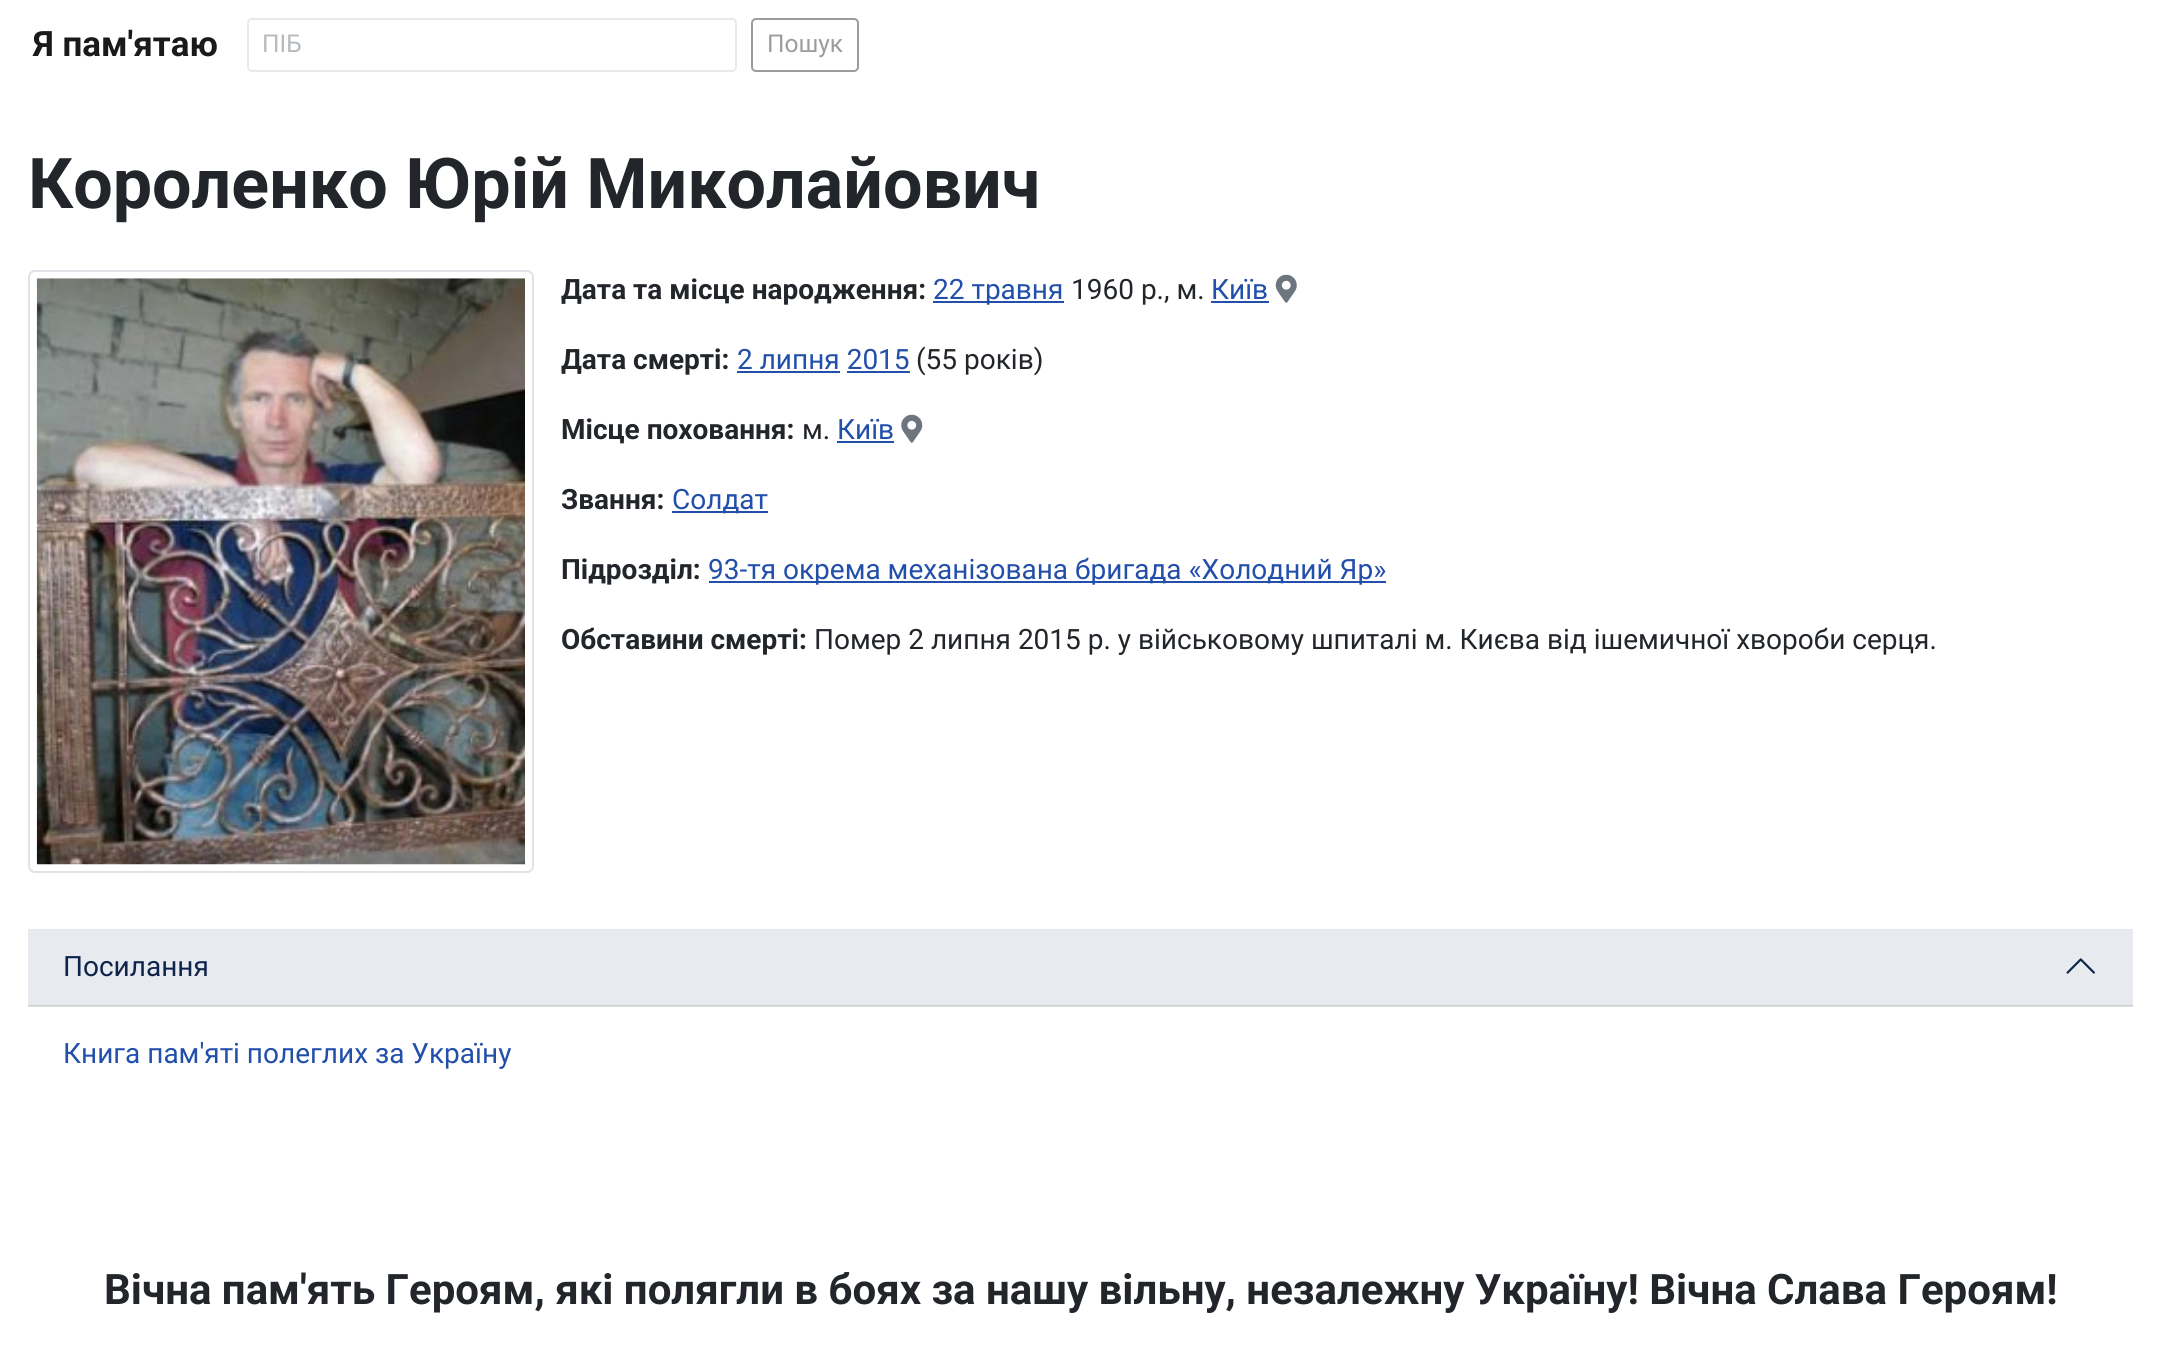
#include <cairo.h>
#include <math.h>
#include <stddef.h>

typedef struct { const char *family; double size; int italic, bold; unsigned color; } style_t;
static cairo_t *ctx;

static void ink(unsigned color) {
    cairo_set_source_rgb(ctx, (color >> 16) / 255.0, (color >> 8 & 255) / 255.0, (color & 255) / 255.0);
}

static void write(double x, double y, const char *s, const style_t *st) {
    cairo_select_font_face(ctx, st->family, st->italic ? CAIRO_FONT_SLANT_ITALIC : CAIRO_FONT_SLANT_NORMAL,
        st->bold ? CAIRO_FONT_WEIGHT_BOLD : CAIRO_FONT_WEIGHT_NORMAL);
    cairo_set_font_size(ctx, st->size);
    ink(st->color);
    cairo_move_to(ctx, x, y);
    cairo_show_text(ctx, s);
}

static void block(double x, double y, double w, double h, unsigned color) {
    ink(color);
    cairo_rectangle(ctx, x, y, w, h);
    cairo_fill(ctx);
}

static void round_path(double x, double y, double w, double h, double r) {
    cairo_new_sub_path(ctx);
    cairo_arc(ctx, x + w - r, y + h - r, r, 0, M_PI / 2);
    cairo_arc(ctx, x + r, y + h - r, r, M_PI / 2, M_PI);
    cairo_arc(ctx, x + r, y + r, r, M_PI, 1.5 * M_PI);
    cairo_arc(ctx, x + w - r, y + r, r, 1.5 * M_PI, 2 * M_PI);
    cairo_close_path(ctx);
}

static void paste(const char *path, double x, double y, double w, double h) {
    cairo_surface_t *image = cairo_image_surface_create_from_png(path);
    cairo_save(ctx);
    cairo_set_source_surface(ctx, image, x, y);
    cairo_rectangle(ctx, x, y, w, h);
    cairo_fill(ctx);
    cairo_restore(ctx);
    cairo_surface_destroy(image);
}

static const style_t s1 = {"Roboto", 35, 0, 1, 0x1a1a1a};
static const style_t s2 = {"Roboto", 24.5, 0, 0, 0xb6babf};
static const style_t s3 = {"Roboto", 24.5, 0, 0, 0x9a9da0};
static const style_t s4 = {"Roboto", 70, 0, 1, 0x22262a};
static const style_t s5 = {"Roboto", 28, 0, 1, 0x22262a};
static const style_t s6 = {"Roboto", 28, 0, 0, 0x224faa};
static const style_t s7 = {"Roboto", 28, 0, 0, 0x22262a};
static const style_t s8 = {"Roboto", 28, 0, 0, 0x0f244d};
static const style_t s9 = {"Roboto", 42, 0, 1, 0x22262a};

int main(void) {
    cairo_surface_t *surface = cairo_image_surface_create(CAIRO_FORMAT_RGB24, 2161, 1372);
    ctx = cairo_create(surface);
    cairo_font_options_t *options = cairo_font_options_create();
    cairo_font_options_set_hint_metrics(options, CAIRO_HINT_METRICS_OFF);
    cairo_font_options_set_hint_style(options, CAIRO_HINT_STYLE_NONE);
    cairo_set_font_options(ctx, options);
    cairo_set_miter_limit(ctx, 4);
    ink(0xffffff);
    cairo_paint(ctx);
    block(28, 1006, 2105, 1, 0xe0e0e0);
    write(33, 56, "Я пам'ятаю", &s1);
    round_path(248, 19, 488, 52, 4);
    ink(0xe7eaed);
    cairo_stroke(ctx);
    write(262, 52, "ПІБ", &s2);
    round_path(752, 19, 106, 52, 4);
    ink(0x9a9da0);
    cairo_stroke(ctx);
    write(767, 52, "Пошук", &s3);
    write(28, 208, "Короленко Юрій Миколайович", &s4);
    round_path(29, 271, 504, 601, 6);
    ink(0xdfe3e7);
    cairo_stroke(ctx);
    paste("pic1.png", 36, 278, 489, 587);
    write(561, 299, "Дата та місце народження:", &s5);
    block(933, 301, 131, 2, 0x224faa);
    write(933, 299, "22 травня", &s6);
    write(1071, 299, "1960 р., м.", &s7);
    write(1211, 299, "Київ", &s6);
    block(1211, 301, 58, 2, 0x224faa);
    paste("pic2.png", 1275, 274, 22, 29);
    write(561, 369, "Дата смерті:", &s5);
    write(737, 369, "2 липня 2015", &s6);
    block(737, 371, 103, 2, 0x224faa);
    write(916, 369, "(55 років)", &s7);
    block(847, 371, 63, 2, 0x224faa);
    write(561, 439, "Місце поховання:", &s5);
    write(802, 439, "м.", &s7);
    write(837, 439, "Київ", &s6);
    block(837, 441, 57, 2, 0x224faa);
    paste("pic3.png", 901, 414, 22, 29);
    write(561, 509, "Звання:", &s5);
    block(672, 511, 96, 2, 0x224faa);
    write(672, 509, "Солдат", &s6);
    write(561, 579, "Підрозділ:", &s5);
    block(709, 581, 677, 2, 0x224faa);
    write(708, 579, "93-тя окрема механізована бригада «Холодний Яр»", &s6);
    write(561, 649, "Обставини смерті:", &s5);
    write(814, 649, "Помер 2 липня 2015 р. у військовому шпиталі м. Києва від ішемичної хвороби серця.", &s7);
    block(28, 929, 2105, 76, 0xe7eaee);
    block(28, 1005, 2105, 1, 0xcbced1);
    write(63, 976, "Посилання", &s8);
    paste("pic4.png", 2066, 958, 29, 16);
    write(63, 1063, "Книга пам'яті полеглих за Україну", &s6);
    write(104, 1304, "Вічна пам'ять Героям, які полягли в боях за нашу вільну, незалежну Україну! Вічна Слава Героям!", &s9);
    cairo_surface_write_to_png(surface, "screenshot.png");
    cairo_font_options_destroy(options);
    cairo_destroy(ctx);
    cairo_surface_destroy(surface);
    return 0;
}
